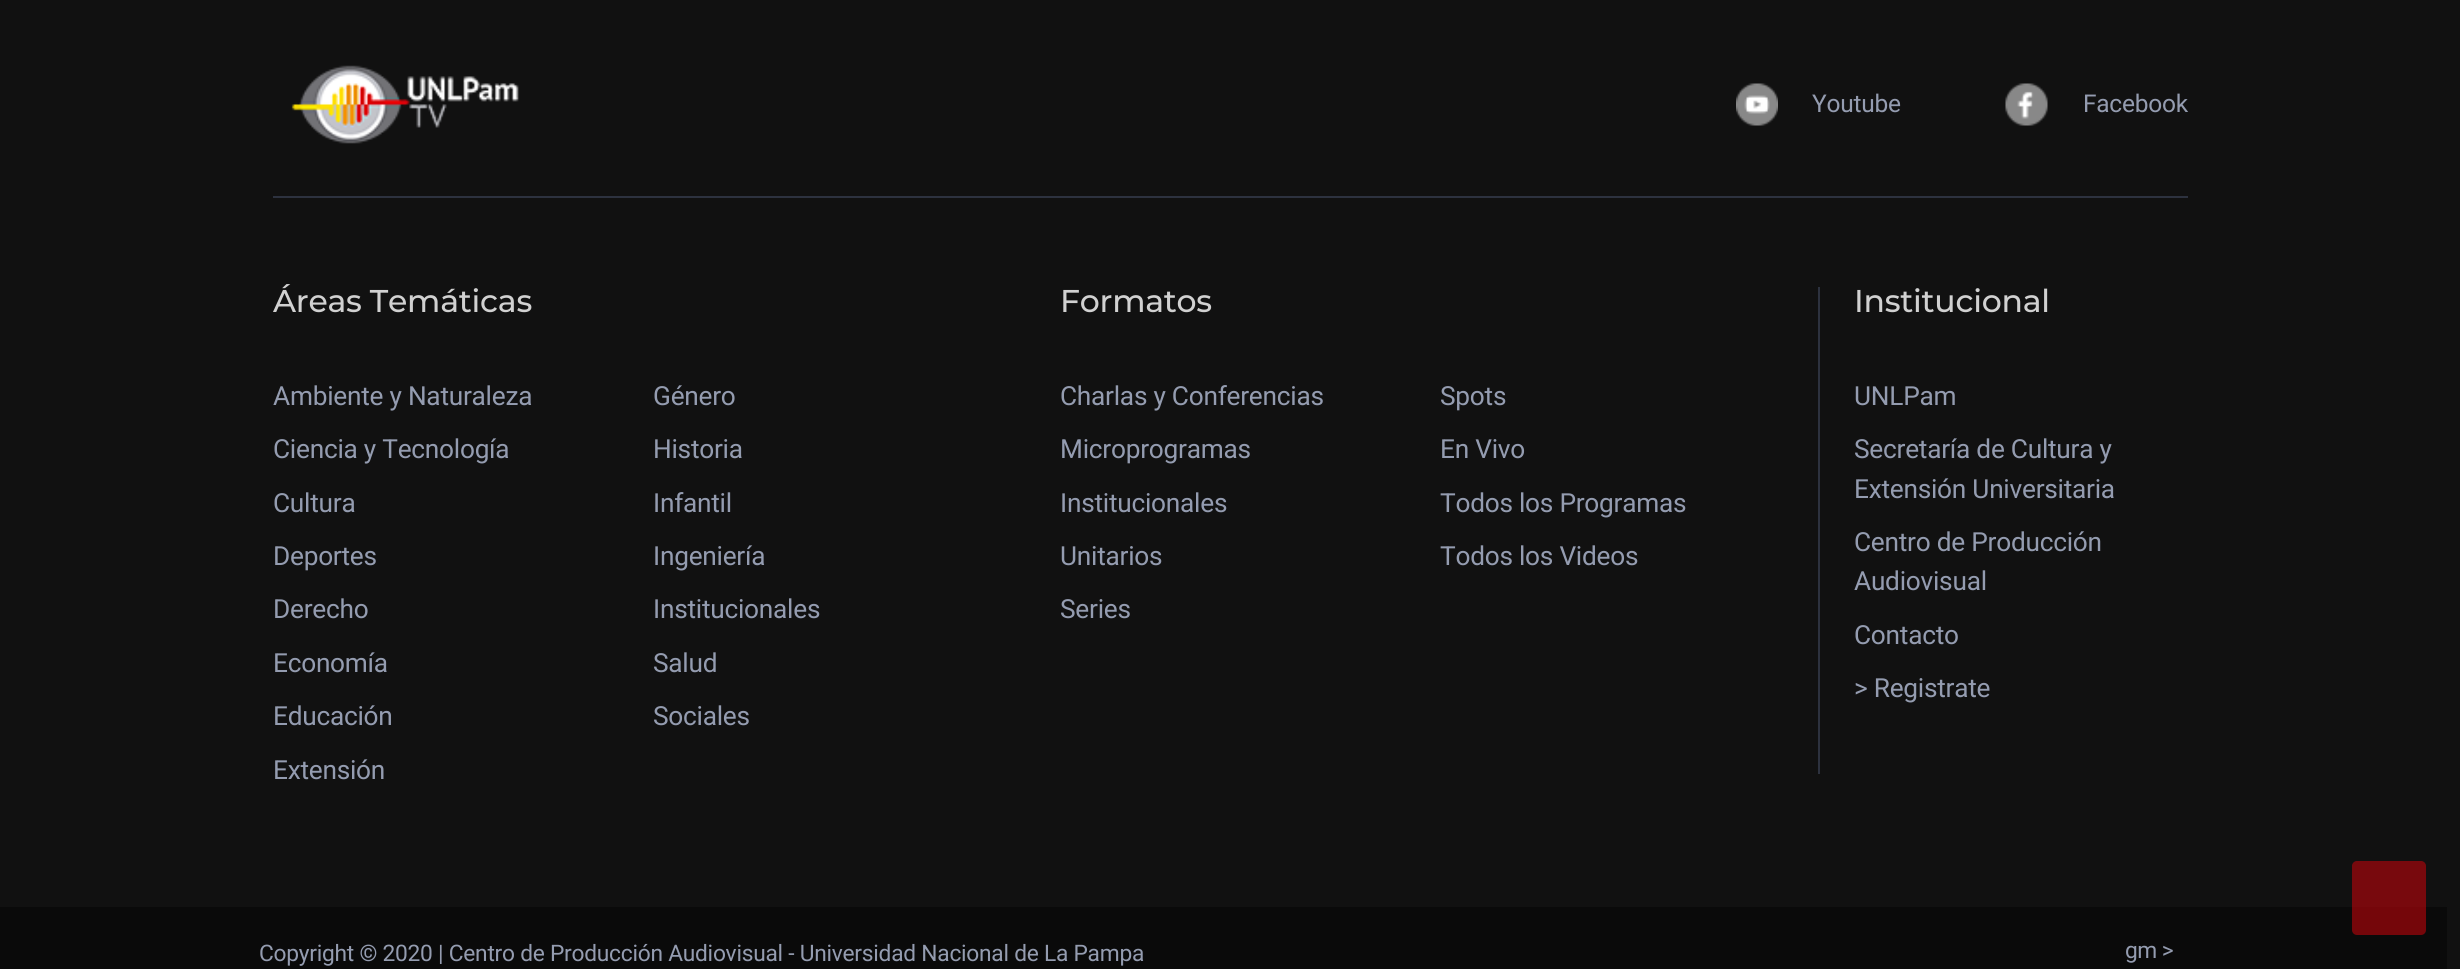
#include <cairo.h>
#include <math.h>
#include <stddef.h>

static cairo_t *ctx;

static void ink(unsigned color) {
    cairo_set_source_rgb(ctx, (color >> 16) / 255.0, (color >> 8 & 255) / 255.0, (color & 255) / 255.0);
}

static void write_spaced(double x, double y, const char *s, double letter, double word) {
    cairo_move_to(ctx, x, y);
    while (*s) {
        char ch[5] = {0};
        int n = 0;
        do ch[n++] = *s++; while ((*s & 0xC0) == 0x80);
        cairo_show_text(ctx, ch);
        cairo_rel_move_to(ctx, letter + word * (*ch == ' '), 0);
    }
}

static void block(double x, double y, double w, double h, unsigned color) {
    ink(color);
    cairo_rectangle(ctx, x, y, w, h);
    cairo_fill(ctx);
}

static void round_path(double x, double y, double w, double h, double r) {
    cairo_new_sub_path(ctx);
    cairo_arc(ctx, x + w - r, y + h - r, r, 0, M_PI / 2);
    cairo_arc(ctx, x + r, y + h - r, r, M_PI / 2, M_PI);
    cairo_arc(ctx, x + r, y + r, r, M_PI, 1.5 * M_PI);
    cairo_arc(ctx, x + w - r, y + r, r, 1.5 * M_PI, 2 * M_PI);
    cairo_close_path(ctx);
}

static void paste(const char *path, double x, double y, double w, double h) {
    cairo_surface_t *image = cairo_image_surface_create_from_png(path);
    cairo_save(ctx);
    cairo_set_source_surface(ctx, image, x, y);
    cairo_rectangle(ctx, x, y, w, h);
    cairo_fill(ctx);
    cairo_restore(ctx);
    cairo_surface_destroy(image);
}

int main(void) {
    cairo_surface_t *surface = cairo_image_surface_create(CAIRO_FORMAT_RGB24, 2460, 969);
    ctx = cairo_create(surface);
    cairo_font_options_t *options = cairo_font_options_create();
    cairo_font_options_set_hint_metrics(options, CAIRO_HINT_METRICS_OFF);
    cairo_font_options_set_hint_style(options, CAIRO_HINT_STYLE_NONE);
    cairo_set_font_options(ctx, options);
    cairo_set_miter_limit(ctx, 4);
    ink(0x111111);
    cairo_paint(ctx);
    paste("pic1.png", 291, 65, 228, 79);
    paste("pic2.png", 1736, 83, 42, 43);
    cairo_select_font_face(ctx, "Roboto", CAIRO_FONT_SLANT_NORMAL, CAIRO_FONT_WEIGHT_NORMAL);
    cairo_set_font_size(ctx, 24.5);
    ink(0x949cb0);
    write_spaced(1812, 112, "Youtube", -0.25, 0);
    paste("pic3.png", 2005, 83, 43, 43);
    write_spaced(2083, 112, "Facebook", -0.25, 0);
    block(273, 196, 1915, 2, 0x2d323f);
    cairo_select_font_face(ctx, "Montserrat Medium", CAIRO_FONT_SLANT_NORMAL, CAIRO_FONT_WEIGHT_NORMAL);
    cairo_set_font_size(ctx, 31.5);
    ink(0xd1d1d1);
    write_spaced(273, 312, "Áreas Temáticas", -0.25, 0);
    cairo_select_font_face(ctx, "Roboto", CAIRO_FONT_SLANT_NORMAL, CAIRO_FONT_WEIGHT_NORMAL);
    cairo_set_font_size(ctx, 26.25);
    ink(0x949cb0);
    write_spaced(273, 405, "Ambiente y Naturaleza", -0.25, 0);
    write_spaced(653, 405, "Género", -0.25, 0);
    write_spaced(273, 458, "Ciencia y Tecnología", -0.25, 0);
    write_spaced(653, 458, "Historia", -0.25, 0);
    write_spaced(273, 512, "Cultura", -0.25, 0);
    write_spaced(653, 512, "Infantil", -0.25, 0);
    write_spaced(273, 565, "Deportes", -0.25, 0);
    write_spaced(653, 565, "Ingeniería", -0.25, 0);
    write_spaced(273, 618, "Derecho", -0.25, 0);
    write_spaced(653, 618, "Institucionales", -0.25, 0);
    write_spaced(273, 672, "Economía", -0.25, 0);
    write_spaced(653, 672, "Salud", -0.25, 0);
    write_spaced(273, 725, "Educación", -0.25, 0);
    write_spaced(653, 725, "Sociales", -0.25, 0);
    write_spaced(273, 779, "Extensión", -0.25, 0);
    cairo_select_font_face(ctx, "Montserrat Medium", CAIRO_FONT_SLANT_NORMAL, CAIRO_FONT_WEIGHT_NORMAL);
    cairo_set_font_size(ctx, 31.5);
    ink(0xd1d1d1);
    write_spaced(1060, 312, "Formatos", -0.25, 0);
    cairo_select_font_face(ctx, "Roboto", CAIRO_FONT_SLANT_NORMAL, CAIRO_FONT_WEIGHT_NORMAL);
    cairo_set_font_size(ctx, 26.25);
    ink(0x949cb0);
    write_spaced(1060, 405, "Charlas y Conferencias", -0.25, 0);
    write_spaced(1440, 405, "Spots", -0.25, 0);
    write_spaced(1060, 458, "Microprogramas", -0.25, 0);
    write_spaced(1440, 458, "En Vivo", -0.25, 0);
    write_spaced(1060, 512, "Institucionales", -0.25, 0);
    write_spaced(1440, 512, "Todos los Programas", -0.25, 0);
    write_spaced(1060, 565, "Unitarios", -0.25, 0);
    write_spaced(1440, 565, "Todos los Videos", -0.25, 0);
    write_spaced(1060, 618, "Series", -0.25, 0);
    block(1818, 287, 2, 487, 0x2d323f);
    cairo_select_font_face(ctx, "Montserrat Medium", CAIRO_FONT_SLANT_NORMAL, CAIRO_FONT_WEIGHT_NORMAL);
    cairo_set_font_size(ctx, 31.5);
    ink(0xd1d1d1);
    write_spaced(1854, 312, "Institucional", -0.25, 0);
    cairo_select_font_face(ctx, "Roboto", CAIRO_FONT_SLANT_NORMAL, CAIRO_FONT_WEIGHT_NORMAL);
    cairo_set_font_size(ctx, 26.25);
    ink(0x949cb0);
    write_spaced(1854, 405, "UNLPam", -0.25, 0);
    write_spaced(1854, 458, "Secretaría de Cultura y", -0.25, 0);
    write_spaced(1854, 498, "Extensión Universitaria", -0.25, 0);
    write_spaced(1854, 551, "Centro de Producción", -0.25, 0);
    write_spaced(1854, 590, "Audiovisual", -0.25, 0);
    write_spaced(1854, 644, "Contacto", -0.25, 0);
    write_spaced(1854, 697, "> Registrate", -0.25, 0);
    block(0, 907, 2447, 62, 0x0a0a0a);
    cairo_set_font_size(ctx, 22.75);
    ink(0x949cb0);
    write_spaced(259, 961, "Copyright © 2020 | Centro de Producción Audiovisual - Universidad Nacional de La Pampa", -0.25, 0);
    write_spaced(2125, 958, "gm >", -0.5, 0);
    cairo_set_source_rgba(ctx, 0.875, 0.012, 0.043, 0.5);
    round_path(2352, 861, 74, 74, 5);
    cairo_fill(ctx);
    cairo_surface_write_to_png(surface, "screenshot.png");
    cairo_font_options_destroy(options);
    cairo_destroy(ctx);
    cairo_surface_destroy(surface);
    return 0;
}
